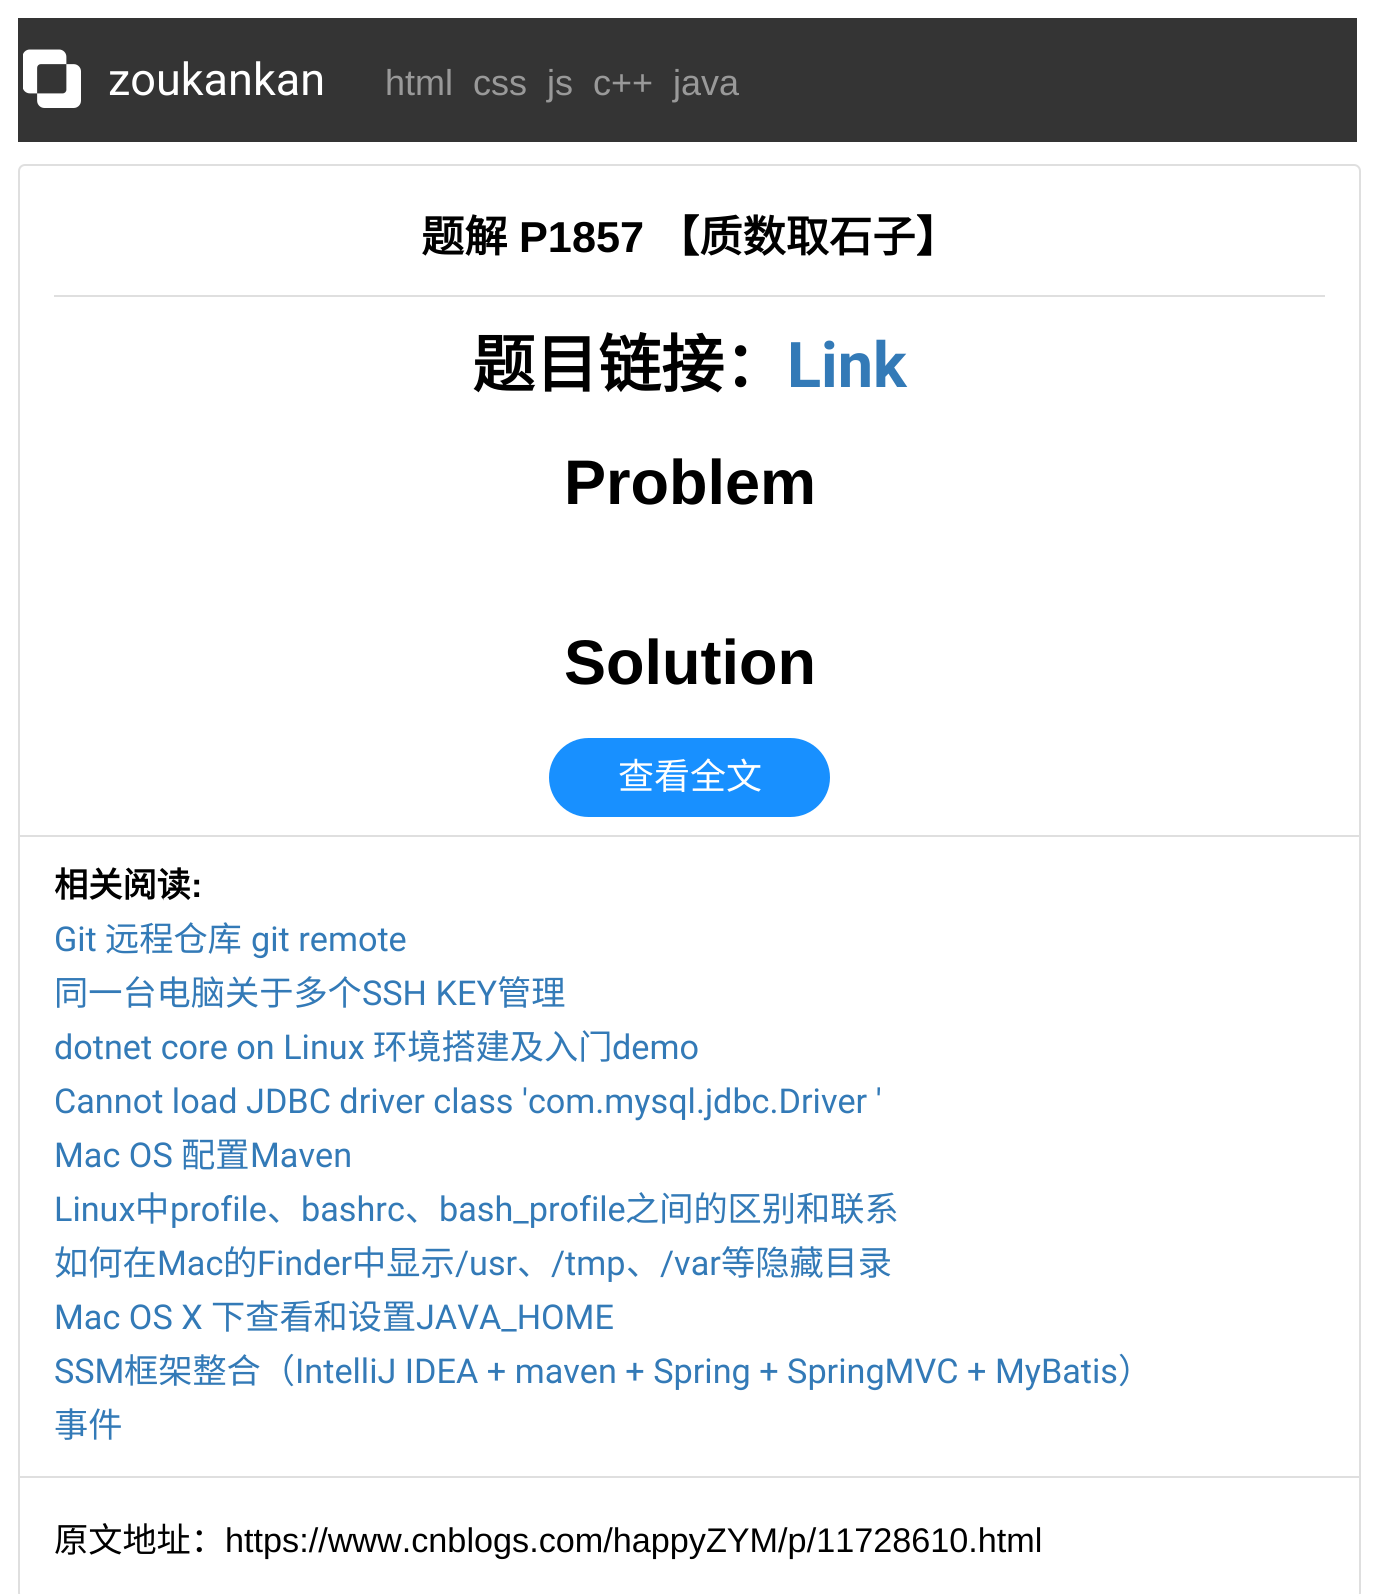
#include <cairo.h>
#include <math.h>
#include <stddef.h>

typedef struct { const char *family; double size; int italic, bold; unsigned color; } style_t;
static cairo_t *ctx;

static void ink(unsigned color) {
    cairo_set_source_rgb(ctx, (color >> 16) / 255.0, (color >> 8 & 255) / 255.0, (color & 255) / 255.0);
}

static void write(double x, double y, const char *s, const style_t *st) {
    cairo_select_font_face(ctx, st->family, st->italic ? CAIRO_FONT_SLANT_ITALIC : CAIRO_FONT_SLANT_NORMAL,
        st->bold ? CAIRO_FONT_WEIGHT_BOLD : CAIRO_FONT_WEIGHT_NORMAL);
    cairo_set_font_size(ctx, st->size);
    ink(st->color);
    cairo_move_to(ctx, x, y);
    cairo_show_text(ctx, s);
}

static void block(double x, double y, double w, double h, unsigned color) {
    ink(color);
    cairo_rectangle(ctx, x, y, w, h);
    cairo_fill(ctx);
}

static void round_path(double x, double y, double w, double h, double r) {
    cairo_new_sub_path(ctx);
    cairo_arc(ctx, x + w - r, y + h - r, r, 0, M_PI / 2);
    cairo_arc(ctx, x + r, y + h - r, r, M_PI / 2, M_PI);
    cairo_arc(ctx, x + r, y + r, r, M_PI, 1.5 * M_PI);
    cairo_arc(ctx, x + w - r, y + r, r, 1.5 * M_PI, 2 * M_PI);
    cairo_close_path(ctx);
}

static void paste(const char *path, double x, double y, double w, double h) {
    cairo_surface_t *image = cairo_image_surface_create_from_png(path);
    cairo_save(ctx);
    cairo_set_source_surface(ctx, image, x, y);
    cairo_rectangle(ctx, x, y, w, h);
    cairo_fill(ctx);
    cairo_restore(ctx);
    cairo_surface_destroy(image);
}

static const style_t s1 = {"Roboto", 45, 0, 0, 0xffffff};
static const style_t s2 = {"Liberation Sans", 36, 0, 0, 0x999999};
static const style_t s3 = {"Noto Sans CJK SC", 43.25, 0, 1, 0x000000};
static const style_t s4 = {"Liberation Sans", 43.25, 0, 1, 0x000000};
static const style_t s5 = {"Noto Sans CJK SC", 63, 0, 1, 0x000000};
static const style_t s6 = {"Roboto", 63, 0, 1, 0x337ab7};
static const style_t s7 = {"Liberation Sans", 63, 0, 1, 0x000000};
static const style_t s8 = {"Noto Sans CJK SC", 36, 0, 0, 0xffffff};
static const style_t s9 = {"Noto Sans CJK SC", 34.2, 0, 1, 0x000000};
static const style_t s10 = {"Liberation Sans", 34.2, 0, 1, 0x000000};
static const style_t s11 = {"Roboto", 34.2, 0, 0, 0x337ab7};
static const style_t s12 = {"Noto Sans CJK SC", 34.2, 0, 0, 0x337ab7};
static const style_t s13 = {"Noto Sans CJK SC", 34.2, 0, 0, 0x000000};
static const style_t s14 = {"Liberation Sans", 34.2, 0, 0, 0x000000};

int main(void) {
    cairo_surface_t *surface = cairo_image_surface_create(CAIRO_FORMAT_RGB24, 1374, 1594);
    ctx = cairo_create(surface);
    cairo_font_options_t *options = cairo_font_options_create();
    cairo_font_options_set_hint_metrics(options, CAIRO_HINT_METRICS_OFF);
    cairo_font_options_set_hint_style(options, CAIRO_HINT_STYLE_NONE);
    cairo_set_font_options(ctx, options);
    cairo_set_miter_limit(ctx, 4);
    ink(0xffffff);
    cairo_paint(ctx);
    block(18, 18, 1339, 124, 0x343434);
    paste("pic1.png", 23, 49, 58, 59);
    write(108, 95, "zoukankan", &s1);
    write(385, 95, "html  css  js  c++  java", &s2);
    round_path(19, 165, 1341, 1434, 6);
    ink(0xdfdfdf);
    cairo_stroke(ctx);
    write(421, 252, "题解", &s3);
    write(519, 252, "P1857", &s4);
    write(656, 252, "【质数取石子】", &s3);
    block(54, 295, 1271, 2, 0xdfdfdf);
    write(472, 387, "题目链接：", &s5);
    write(787, 387, "Link", &s6);
    write(564, 504, "Problem", &s7);
    write(564, 684, "Solution", &s7);
    ink(0x1890ff);
    round_path(549, 738, 281, 79, 39.5);
    cairo_fill(ctx);
    write(618, 789, "查看全文", &s8);
    block(20, 835, 1339, 2, 0xdfdfdf);
    write(54, 897, "相关阅读", &s9);
    write(191, 897, ":", &s10);
    write(54, 951, "Git", &s11);
    write(105, 951, "远程仓库", &s12);
    write(251, 951, "git remote", &s11);
    write(54, 1005, "同一台电脑关于多个", &s12);
    write(362, 1005, "SSH KEY", &s11);
    write(497, 1005, "管理", &s12);
    write(54, 1059, "dotnet core on Linux", &s11);
    write(373, 1059, "环境搭建及入门", &s12);
    write(612, 1059, "demo", &s11);
    write(54, 1113, "Cannot load JDBC driver class 'com.mysql.jdbc.Driver '", &s11);
    write(54, 1167, "Mac OS", &s11);
    write(181, 1167, "配置", &s12);
    write(250, 1167, "Maven", &s11);
    write(54, 1221, "Linux", &s11);
    write(135, 1221, "中", &s12);
    write(170, 1221, "profile", &s11);
    write(267, 1221, "、", &s12);
    write(301, 1221, "bashrc", &s11);
    write(405, 1221, "、", &s12);
    write(439, 1221, "bash_profile", &s11);
    write(625, 1221, "之间的区别和联系", &s12);
    write(54, 1275, "如何在", &s12);
    write(157, 1275, "Mac", &s11);
    write(223, 1275, "的", &s12);
    write(257, 1275, "Finder", &s11);
    write(352, 1275, "中显示", &s12);
    write(455, 1275, "/usr", &s11);
    write(517, 1275, "、", &s12);
    write(551, 1275, "/tmp", &s11);
    write(626, 1275, "、", &s12);
    write(660, 1275, "/var", &s11);
    write(721, 1275, "等隐藏目录", &s12);
    write(54, 1329, "Mac OS X", &s11);
    write(211, 1329, "下查看和设置", &s12);
    write(416, 1329, "JAVA_HOME", &s11);
    write(54, 1383, "SSM", &s11);
    write(124, 1383, "框架整合（", &s12);
    write(295, 1383, "IntelliJ IDEA + maven + Spring + SpringMVC + MyBatis", &s11);
    write(1118, 1383, "）", &s12);
    write(54, 1437, "事件", &s12);
    block(20, 1476, 1339, 2, 0xdfdfdf);
    write(54, 1552, "原文地址：", &s13);
    write(225, 1552, "https://www.cnblogs.com/happyZYM/p/11728610.html", &s14);
    cairo_surface_write_to_png(surface, "screenshot.png");
    cairo_font_options_destroy(options);
    cairo_destroy(ctx);
    cairo_surface_destroy(surface);
    return 0;
}
